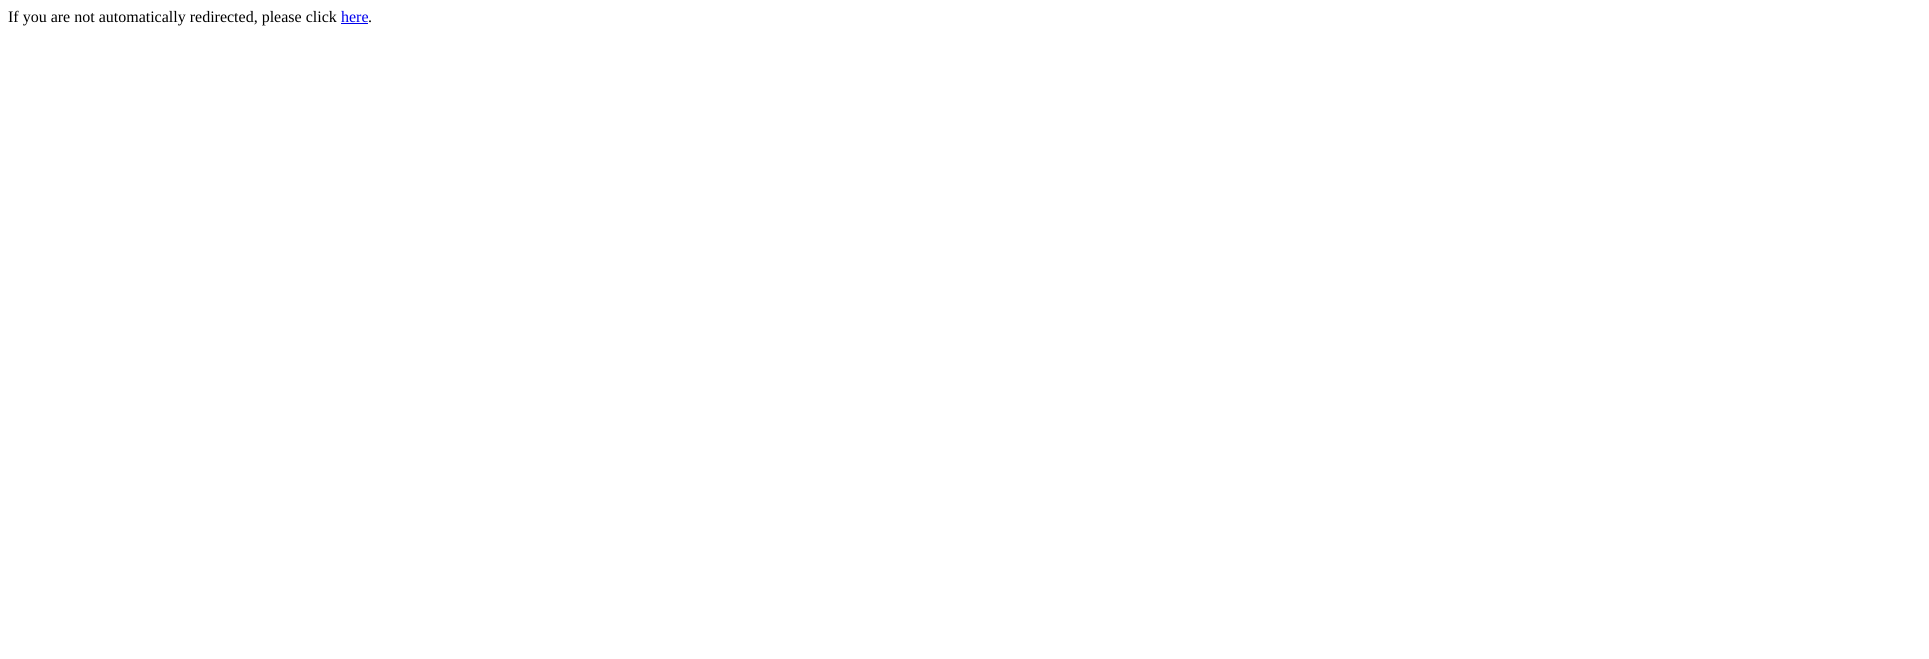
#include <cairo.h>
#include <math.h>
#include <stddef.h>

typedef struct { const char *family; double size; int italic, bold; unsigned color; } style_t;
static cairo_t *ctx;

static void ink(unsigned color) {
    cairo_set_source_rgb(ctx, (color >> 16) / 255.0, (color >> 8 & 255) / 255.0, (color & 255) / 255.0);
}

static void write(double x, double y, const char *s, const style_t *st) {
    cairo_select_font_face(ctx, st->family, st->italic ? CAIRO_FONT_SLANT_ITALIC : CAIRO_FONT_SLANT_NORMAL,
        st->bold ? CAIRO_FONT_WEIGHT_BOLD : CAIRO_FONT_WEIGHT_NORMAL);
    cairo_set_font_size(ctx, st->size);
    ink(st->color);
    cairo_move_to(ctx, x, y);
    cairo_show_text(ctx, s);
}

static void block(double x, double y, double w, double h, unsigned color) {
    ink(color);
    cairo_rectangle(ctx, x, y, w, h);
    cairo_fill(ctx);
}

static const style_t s1 = {"Liberation Serif", 16, 0, 0, 0x000000};
static const style_t s2 = {"Liberation Serif", 16, 0, 0, 0x0000ee};

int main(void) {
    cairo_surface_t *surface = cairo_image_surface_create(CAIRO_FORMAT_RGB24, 1929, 659);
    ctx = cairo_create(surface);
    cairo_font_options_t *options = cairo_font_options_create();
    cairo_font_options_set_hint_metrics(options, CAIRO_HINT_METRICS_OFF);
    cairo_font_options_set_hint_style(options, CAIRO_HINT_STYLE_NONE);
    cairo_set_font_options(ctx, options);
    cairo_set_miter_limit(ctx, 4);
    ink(0xffffff);
    cairo_paint(ctx);
    write(8, 22, "If you are not automatically redirected, please click", &s1);
    write(341, 22, "here", &s2);
    block(341, 23, 27, 1, 0x0000ee);
    write(368, 22, ".", &s1);
    cairo_surface_write_to_png(surface, "screenshot.png");
    cairo_font_options_destroy(options);
    cairo_destroy(ctx);
    cairo_surface_destroy(surface);
    return 0;
}
